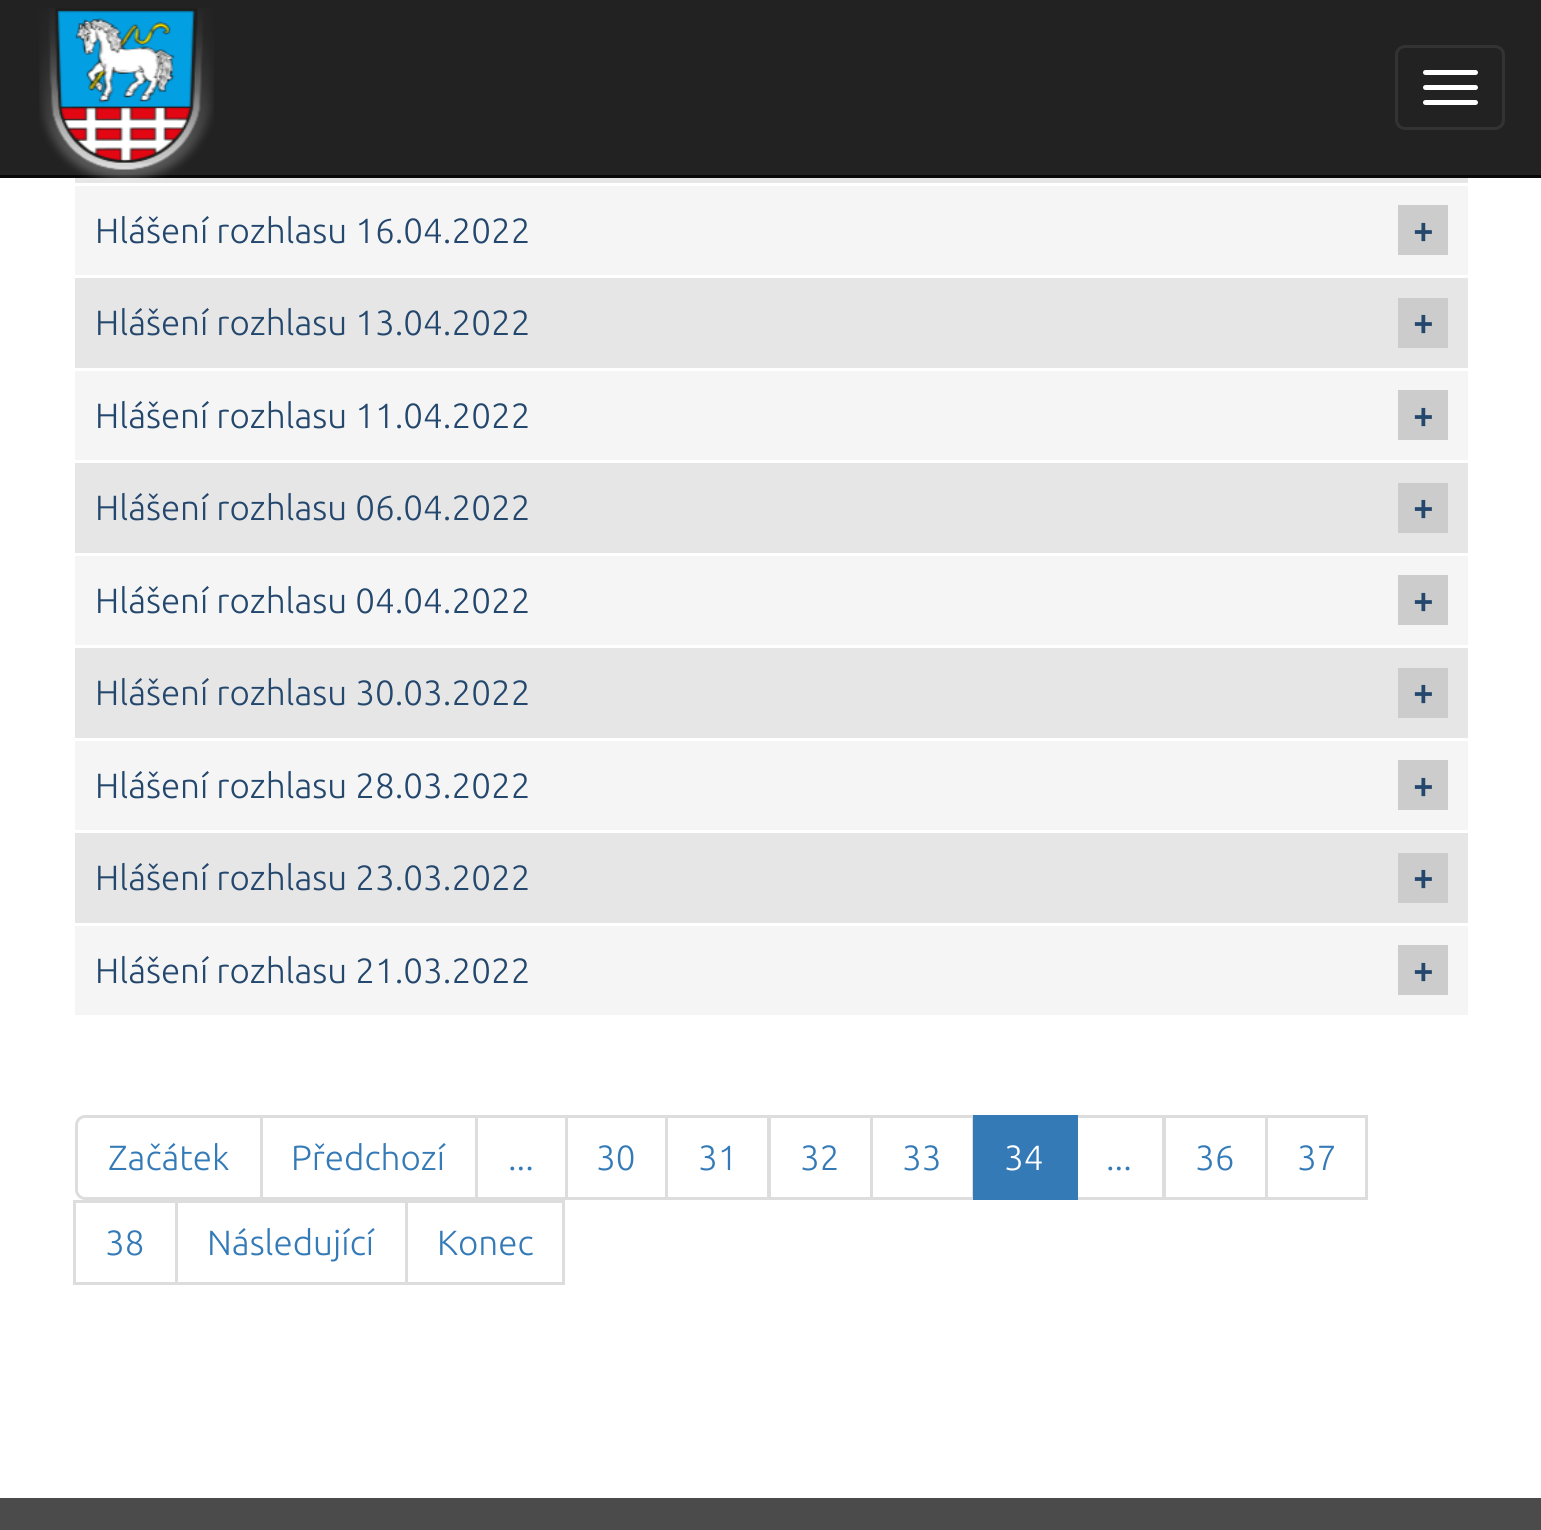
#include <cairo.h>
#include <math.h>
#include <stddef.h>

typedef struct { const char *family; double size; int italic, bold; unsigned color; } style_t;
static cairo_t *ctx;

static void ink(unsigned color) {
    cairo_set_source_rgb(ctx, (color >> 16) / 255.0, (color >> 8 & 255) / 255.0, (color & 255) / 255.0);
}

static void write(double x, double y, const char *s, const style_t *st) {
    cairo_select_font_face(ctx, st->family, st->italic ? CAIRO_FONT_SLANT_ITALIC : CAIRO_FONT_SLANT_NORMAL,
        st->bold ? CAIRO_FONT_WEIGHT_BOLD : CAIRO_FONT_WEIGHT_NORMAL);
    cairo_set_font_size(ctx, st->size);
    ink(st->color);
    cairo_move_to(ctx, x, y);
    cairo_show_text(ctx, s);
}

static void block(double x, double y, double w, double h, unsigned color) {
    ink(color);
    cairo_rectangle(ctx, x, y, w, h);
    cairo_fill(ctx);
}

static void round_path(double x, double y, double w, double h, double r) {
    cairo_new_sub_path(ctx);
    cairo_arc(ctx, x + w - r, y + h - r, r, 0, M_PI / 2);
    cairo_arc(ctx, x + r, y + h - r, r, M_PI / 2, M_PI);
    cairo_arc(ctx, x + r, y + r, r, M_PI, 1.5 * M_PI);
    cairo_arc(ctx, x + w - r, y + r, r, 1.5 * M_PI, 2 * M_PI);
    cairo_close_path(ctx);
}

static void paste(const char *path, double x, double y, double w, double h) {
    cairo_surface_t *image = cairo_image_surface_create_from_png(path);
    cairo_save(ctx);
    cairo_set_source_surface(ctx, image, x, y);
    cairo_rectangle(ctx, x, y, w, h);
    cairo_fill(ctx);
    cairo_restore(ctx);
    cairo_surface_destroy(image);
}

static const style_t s1 = {"Ubuntu Light", 35, 0, 0, 0x23476d};
static const style_t s2 = {"Ubuntu", 35, 0, 1, 0x23476d};
static const style_t s3 = {"Ubuntu Light", 35, 0, 0, 0x337ab7};
static const style_t s4 = {"Ubuntu Light", 35, 0, 0, 0xffffff};

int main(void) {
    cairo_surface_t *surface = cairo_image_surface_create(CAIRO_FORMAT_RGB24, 1541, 1530);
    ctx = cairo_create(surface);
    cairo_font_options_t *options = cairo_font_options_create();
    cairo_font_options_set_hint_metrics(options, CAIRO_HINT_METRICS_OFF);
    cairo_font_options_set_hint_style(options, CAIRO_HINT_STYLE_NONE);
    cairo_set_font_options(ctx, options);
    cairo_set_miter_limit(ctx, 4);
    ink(0xffffff);
    cairo_paint(ctx);
    block(0, 0, 1541, 175, 0x222222);
    block(0, 175, 1541, 3, 0x080808);
    paste("pic1.png", 39, 8, 175, 170);
    round_path(1396.5, 46.5, 107, 82, 8.5);
    ink(0x333333);
    cairo_set_line_width(ctx, 3);
    cairo_stroke(ctx);
    ink(0xffffff);
    round_path(1423, 70, 55, 5, 2.5);
    cairo_fill(ctx);
    round_path(1423, 85, 55, 5, 2.5);
    cairo_fill(ctx);
    round_path(1423, 100, 55, 5, 2.5);
    cairo_fill(ctx);
    block(75, 178, 1393, 5, 0xe6e6e6);
    block(75, 186, 1393, 89, 0xf5f5f5);
    write(95, 243, "Hlášení rozhlasu 16.04.2022", &s1);
    block(1398, 205, 50, 50, 0xcccccc);
    write(1413, 243, "+", &s2);
    block(75, 278, 1393, 90, 0xe6e6e6);
    write(95, 335, "Hlášení rozhlasu 13.04.2022", &s1);
    block(1398, 298, 50, 50, 0xcccccc);
    write(1413, 335, "+", &s2);
    block(75, 371, 1393, 89, 0xf5f5f5);
    write(95, 428, "Hlášení rozhlasu 11.04.2022", &s1);
    block(1398, 390, 50, 50, 0xcccccc);
    write(1413, 428, "+", &s2);
    block(75, 463, 1393, 90, 0xe6e6e6);
    write(95, 520, "Hlášení rozhlasu 06.04.2022", &s1);
    block(1398, 483, 50, 50, 0xcccccc);
    write(1413, 520, "+", &s2);
    block(75, 556, 1393, 89, 0xf5f5f5);
    write(95, 613, "Hlášení rozhlasu 04.04.2022", &s1);
    block(1398, 575, 50, 50, 0xcccccc);
    write(1413, 613, "+", &s2);
    block(75, 648, 1393, 90, 0xe6e6e6);
    write(95, 705, "Hlášení rozhlasu 30.03.2022", &s1);
    block(1398, 668, 50, 50, 0xcccccc);
    write(1413, 705, "+", &s2);
    block(75, 741, 1393, 89, 0xf5f5f5);
    write(95, 798, "Hlášení rozhlasu 28.03.2022", &s1);
    block(1398, 760, 50, 50, 0xcccccc);
    write(1413, 798, "+", &s2);
    block(75, 833, 1393, 90, 0xe6e6e6);
    write(95, 890, "Hlášení rozhlasu 23.03.2022", &s1);
    block(1398, 853, 50, 50, 0xcccccc);
    write(1413, 890, "+", &s2);
    block(75, 926, 1393, 89, 0xf5f5f5);
    write(95, 983, "Hlášení rozhlasu 21.03.2022", &s1);
    block(1398, 945, 50, 50, 0xcccccc);
    write(1413, 983, "+", &s2);
    cairo_new_path(ctx);
    cairo_move_to(ctx, 85, 1116.5);
    cairo_line_to(ctx, 261.5, 1116.5);
    cairo_line_to(ctx, 261.5, 1198.5);
    cairo_line_to(ctx, 85, 1198.5);
    cairo_curve_to(ctx, 80.5, 1198.5, 76.5, 1194.5, 76.5, 1190);
    cairo_line_to(ctx, 76.5, 1125);
    cairo_curve_to(ctx, 76.5, 1120.5, 80.5, 1116.5, 85, 1116.5);
    cairo_close_path(ctx);
    ink(0xdddddd);
    cairo_stroke(ctx);
    write(108, 1170, "Začátek", &s3);
    cairo_rectangle(ctx, 261.5, 1116.5, 215, 82);
    ink(0xdddddd);
    cairo_stroke(ctx);
    write(291, 1170, "Předchozí", &s3);
    cairo_rectangle(ctx, 476.5, 1116.5, 90, 82);
    ink(0xdddddd);
    cairo_stroke(ctx);
    write(508, 1170, "...", &s3);
    cairo_rectangle(ctx, 566.5, 1116.5, 100, 82);
    ink(0xdddddd);
    cairo_stroke(ctx);
    write(596, 1170, "30", &s3);
    cairo_rectangle(ctx, 666.5, 1116.5, 102, 82);
    ink(0xdddddd);
    cairo_stroke(ctx);
    write(698, 1170, "31", &s3);
    cairo_rectangle(ctx, 769.5, 1116.5, 102, 82);
    ink(0xdddddd);
    cairo_stroke(ctx);
    write(800, 1170, "32", &s3);
    cairo_rectangle(ctx, 871.5, 1116.5, 102, 82);
    ink(0xdddddd);
    cairo_stroke(ctx);
    write(902, 1170, "33", &s3);
    cairo_rectangle(ctx, 1076.5, 1116.5, 87, 82);
    ink(0xdddddd);
    cairo_stroke(ctx);
    block(973, 1115, 105, 85, 0x337ab7);
    write(1004, 1170, "34", &s4);
    write(1106, 1170, "...", &s3);
    cairo_rectangle(ctx, 1164.5, 1116.5, 102, 82);
    ink(0xdddddd);
    cairo_stroke(ctx);
    write(1195, 1170, "36", &s3);
    cairo_rectangle(ctx, 1266.5, 1116.5, 100, 82);
    ink(0xdddddd);
    cairo_stroke(ctx);
    write(1297, 1170, "37", &s3);
    cairo_rectangle(ctx, 74.5, 1201.5, 102, 82);
    ink(0xdddddd);
    cairo_stroke(ctx);
    write(105, 1255, "38", &s3);
    cairo_rectangle(ctx, 176.5, 1201.5, 230, 82);
    ink(0xdddddd);
    cairo_stroke(ctx);
    write(207, 1255, "Následující", &s3);
    cairo_rectangle(ctx, 406.5, 1201.5, 157, 82);
    ink(0xdddddd);
    cairo_stroke(ctx);
    write(437, 1255, "Konec", &s3);
    block(0, 1498, 1541, 32, 0x4b4b4b);
    cairo_surface_write_to_png(surface, "screenshot.png");
    cairo_font_options_destroy(options);
    cairo_destroy(ctx);
    cairo_surface_destroy(surface);
    return 0;
}
